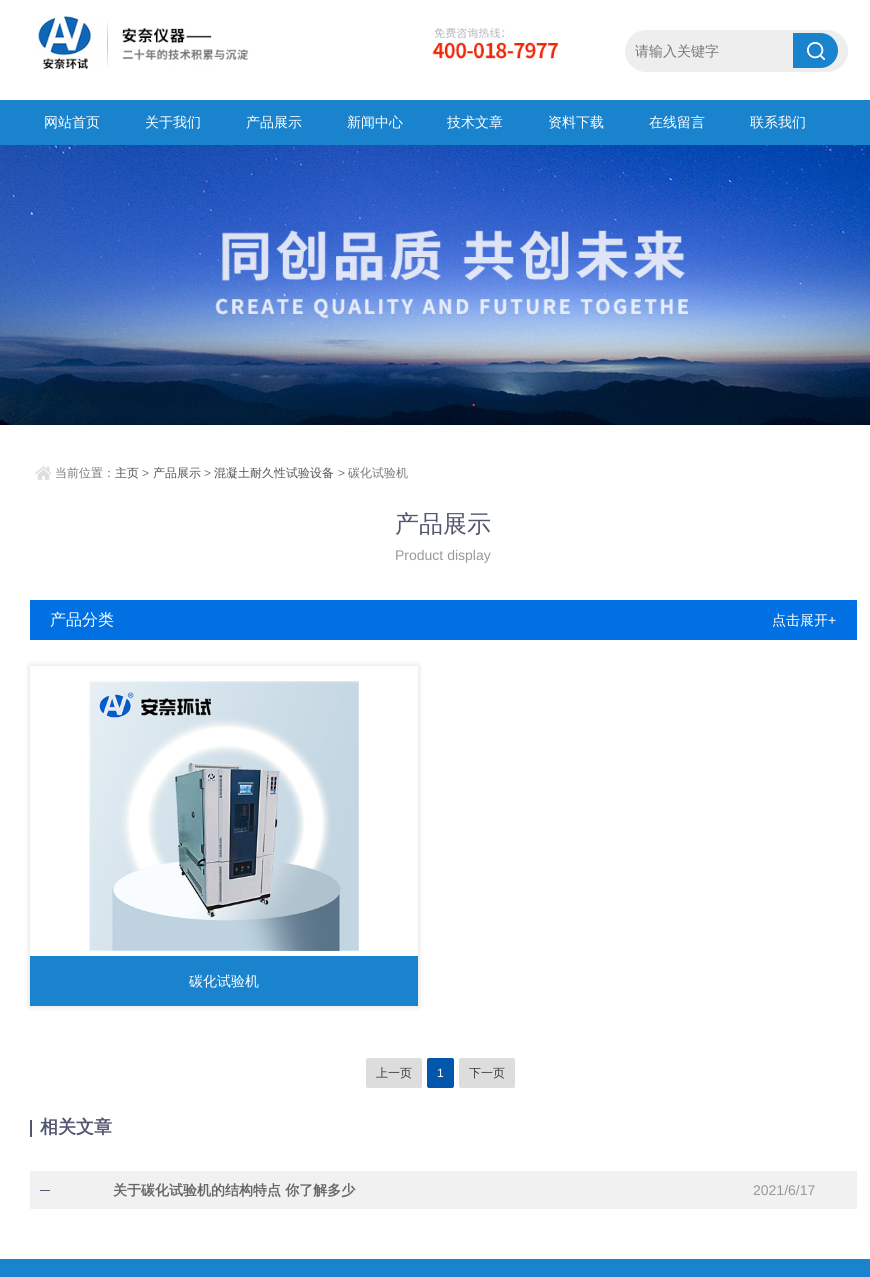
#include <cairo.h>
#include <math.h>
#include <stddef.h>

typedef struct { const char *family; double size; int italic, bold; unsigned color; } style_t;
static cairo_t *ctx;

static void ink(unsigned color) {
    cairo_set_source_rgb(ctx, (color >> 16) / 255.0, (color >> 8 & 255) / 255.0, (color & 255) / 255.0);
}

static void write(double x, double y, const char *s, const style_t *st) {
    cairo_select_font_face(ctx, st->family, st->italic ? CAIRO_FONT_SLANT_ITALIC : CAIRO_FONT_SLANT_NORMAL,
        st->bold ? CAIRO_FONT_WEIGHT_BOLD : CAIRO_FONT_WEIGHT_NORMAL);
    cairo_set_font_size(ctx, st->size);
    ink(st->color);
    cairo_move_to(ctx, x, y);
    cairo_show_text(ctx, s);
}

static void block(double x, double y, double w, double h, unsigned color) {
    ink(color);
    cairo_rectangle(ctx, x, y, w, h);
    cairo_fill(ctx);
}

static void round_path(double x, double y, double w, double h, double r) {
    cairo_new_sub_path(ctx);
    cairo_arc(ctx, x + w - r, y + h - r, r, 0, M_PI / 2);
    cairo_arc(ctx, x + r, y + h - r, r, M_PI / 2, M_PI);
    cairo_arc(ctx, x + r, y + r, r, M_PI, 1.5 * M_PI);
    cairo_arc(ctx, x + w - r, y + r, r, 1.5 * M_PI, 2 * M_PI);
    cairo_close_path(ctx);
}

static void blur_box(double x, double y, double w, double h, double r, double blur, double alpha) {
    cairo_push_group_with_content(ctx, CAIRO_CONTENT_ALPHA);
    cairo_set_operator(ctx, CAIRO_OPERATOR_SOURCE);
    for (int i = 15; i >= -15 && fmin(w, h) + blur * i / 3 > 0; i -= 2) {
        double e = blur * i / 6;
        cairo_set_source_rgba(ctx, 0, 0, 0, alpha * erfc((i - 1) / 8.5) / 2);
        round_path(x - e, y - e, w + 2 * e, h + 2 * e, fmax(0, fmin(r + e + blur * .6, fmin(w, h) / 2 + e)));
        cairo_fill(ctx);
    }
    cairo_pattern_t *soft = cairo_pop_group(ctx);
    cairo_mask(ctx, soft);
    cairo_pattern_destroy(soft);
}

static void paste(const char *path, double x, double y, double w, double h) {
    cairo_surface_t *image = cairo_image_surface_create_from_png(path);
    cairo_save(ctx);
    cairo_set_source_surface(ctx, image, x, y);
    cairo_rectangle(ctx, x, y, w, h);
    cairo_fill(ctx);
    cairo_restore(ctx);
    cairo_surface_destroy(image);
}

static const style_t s1 = {"WenQuanYi Zen Hei Medium", 14, 0, 0, 0x777777};
static const style_t s2 = {"WenQuanYi Zen Hei Medium", 14, 0, 0, 0xffffff};
static const style_t s3 = {"WenQuanYi Zen Hei Medium", 12, 0, 0, 0x777777};
static const style_t s4 = {"WenQuanYi Zen Hei Medium", 12, 0, 0, 0x555555};
static const style_t s5 = {"Liberation Sans", 12, 0, 0, 0x777777};
static const style_t s6 = {"WenQuanYi Zen Hei Medium", 24, 0, 0, 0x515671};
static const style_t s7 = {"Liberation Sans", 14, 0, 0, 0x999999};
static const style_t s8 = {"WenQuanYi Zen Hei Medium", 16, 0, 0, 0xffffff};
static const style_t s9 = {"Liberation Sans", 14, 0, 0, 0xffffff};
static const style_t s10 = {"WenQuanYi Zen Hei Medium", 12, 0, 0, 0x3a3a3a};
static const style_t s11 = {"Liberation Sans", 12, 0, 0, 0xffffff};
static const style_t s12 = {"WenQuanYi Zen Hei", 18, 0, 1, 0x515671};
static const style_t s13 = {"WenQuanYi Zen Hei", 14, 0, 1, 0x666666};

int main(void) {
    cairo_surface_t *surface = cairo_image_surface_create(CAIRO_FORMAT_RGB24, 870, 1277);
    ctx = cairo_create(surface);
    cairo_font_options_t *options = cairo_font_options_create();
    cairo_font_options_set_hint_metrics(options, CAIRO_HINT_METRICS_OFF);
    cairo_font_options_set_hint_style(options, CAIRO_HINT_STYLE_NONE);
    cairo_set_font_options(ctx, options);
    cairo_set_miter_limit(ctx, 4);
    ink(0xffffff);
    cairo_paint(ctx);
    paste("pic1.png", 38, 16, 521, 54);
    ink(0xeeeeee);
    round_path(625.5, 30.5, 222, 41, 20.5);
    cairo_fill_preserve(ctx);
    cairo_set_line_width(ctx, 1);
    cairo_stroke(ctx);
    write(635, 56, "请输入关键字", &s1);
    ink(0x1983cd);
    cairo_new_path(ctx);
    cairo_move_to(ctx, 793, 33);
    cairo_line_to(ctx, 820.5, 33);
    cairo_curve_to(ctx, 830, 33, 838, 41, 838, 50.5);
    cairo_curve_to(ctx, 838, 60, 830, 68, 820.5, 68);
    cairo_line_to(ctx, 793, 68);
    cairo_close_path(ctx);
    cairo_fill(ctx);
    paste("pic2.png", 807, 42, 18, 18);
    block(0, 100, 870, 45, 0x1983cd);
    write(44, 127, "网站首页", &s2);
    write(145, 127, "关于我们", &s2);
    write(246, 127, "产品展示", &s2);
    write(347, 127, "新闻中心", &s2);
    write(447, 127, "技术文章", &s2);
    write(548, 127, "资料下载", &s2);
    write(649, 127, "在线留言", &s2);
    write(750, 127, "联系我们", &s2);
    paste("pic3.png", 0, 145, 870, 280);
    paste("pic4.png", 35, 466, 16, 14);
    write(55, 477, "当前位置：", &s3);
    write(115, 477, "主页", &s4);
    write(142, 477, ">", &s5);
    write(153, 477, "产品展示", &s4);
    write(204, 477, ">", &s5);
    write(214, 477, "混凝土耐久性试验设备", &s4);
    write(338, 477, ">", &s5);
    write(348, 477, "碳化试验机", &s3);
    write(395, 532, "产品展示", &s6);
    write(395, 560, "Product display", &s7);
    block(30, 600, 827, 40, 0x0170e2);
    write(50, 625, "产品分类", &s8);
    write(772, 625, "点击展开", &s2);
    write(828, 625, "+", &s9);
    cairo_save(ctx);
    cairo_set_fill_rule(ctx, CAIRO_FILL_RULE_EVEN_ODD);
    cairo_new_path(ctx);
    cairo_move_to(ctx, 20, 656);
    cairo_line_to(ctx, 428, 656);
    cairo_line_to(ctx, 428, 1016);
    cairo_line_to(ctx, 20, 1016);
    cairo_close_path(ctx);
    cairo_move_to(ctx, 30, 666);
    cairo_line_to(ctx, 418, 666);
    cairo_line_to(ctx, 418, 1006);
    cairo_line_to(ctx, 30, 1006);
    cairo_close_path(ctx);
    cairo_clip(ctx);
    ink(0x7f7f7f);
    blur_box(30, 666, 388, 340, 0, 3, 0.3);
    cairo_restore(ctx);
    paste("pic5.png", 89, 681, 270, 270);
    block(30, 956, 388, 50, 0x1983cd);
    write(189, 986, "碳化试验机", &s2);
    ink(0xdddddd);
    round_path(366, 1058, 56, 30, 2);
    cairo_fill(ctx);
    write(376, 1077, "上一页", &s10);
    ink(0x0256ac);
    round_path(427, 1058, 27, 30, 2);
    cairo_fill(ctx);
    write(437, 1077, "1", &s11);
    ink(0xdddddd);
    round_path(459, 1058, 56, 30, 2);
    cairo_fill(ctx);
    write(469, 1077, "下一页", &s10);
    block(30, 1120, 2, 17, 0x515671);
    write(40, 1133, "相关文章", &s12);
    block(30, 1171, 827, 38, 0xf1f1f1);
    block(40, 1190, 10, 1, 0x515671);
    write(113, 1195, "关于碳化试验机的结构特点 你了解多少", &s13);
    write(753, 1195, "2021/6/17", &s7);
    block(0, 1259, 870, 18, 0x1983cd);
    cairo_surface_write_to_png(surface, "screenshot.png");
    cairo_font_options_destroy(options);
    cairo_destroy(ctx);
    cairo_surface_destroy(surface);
    return 0;
}
